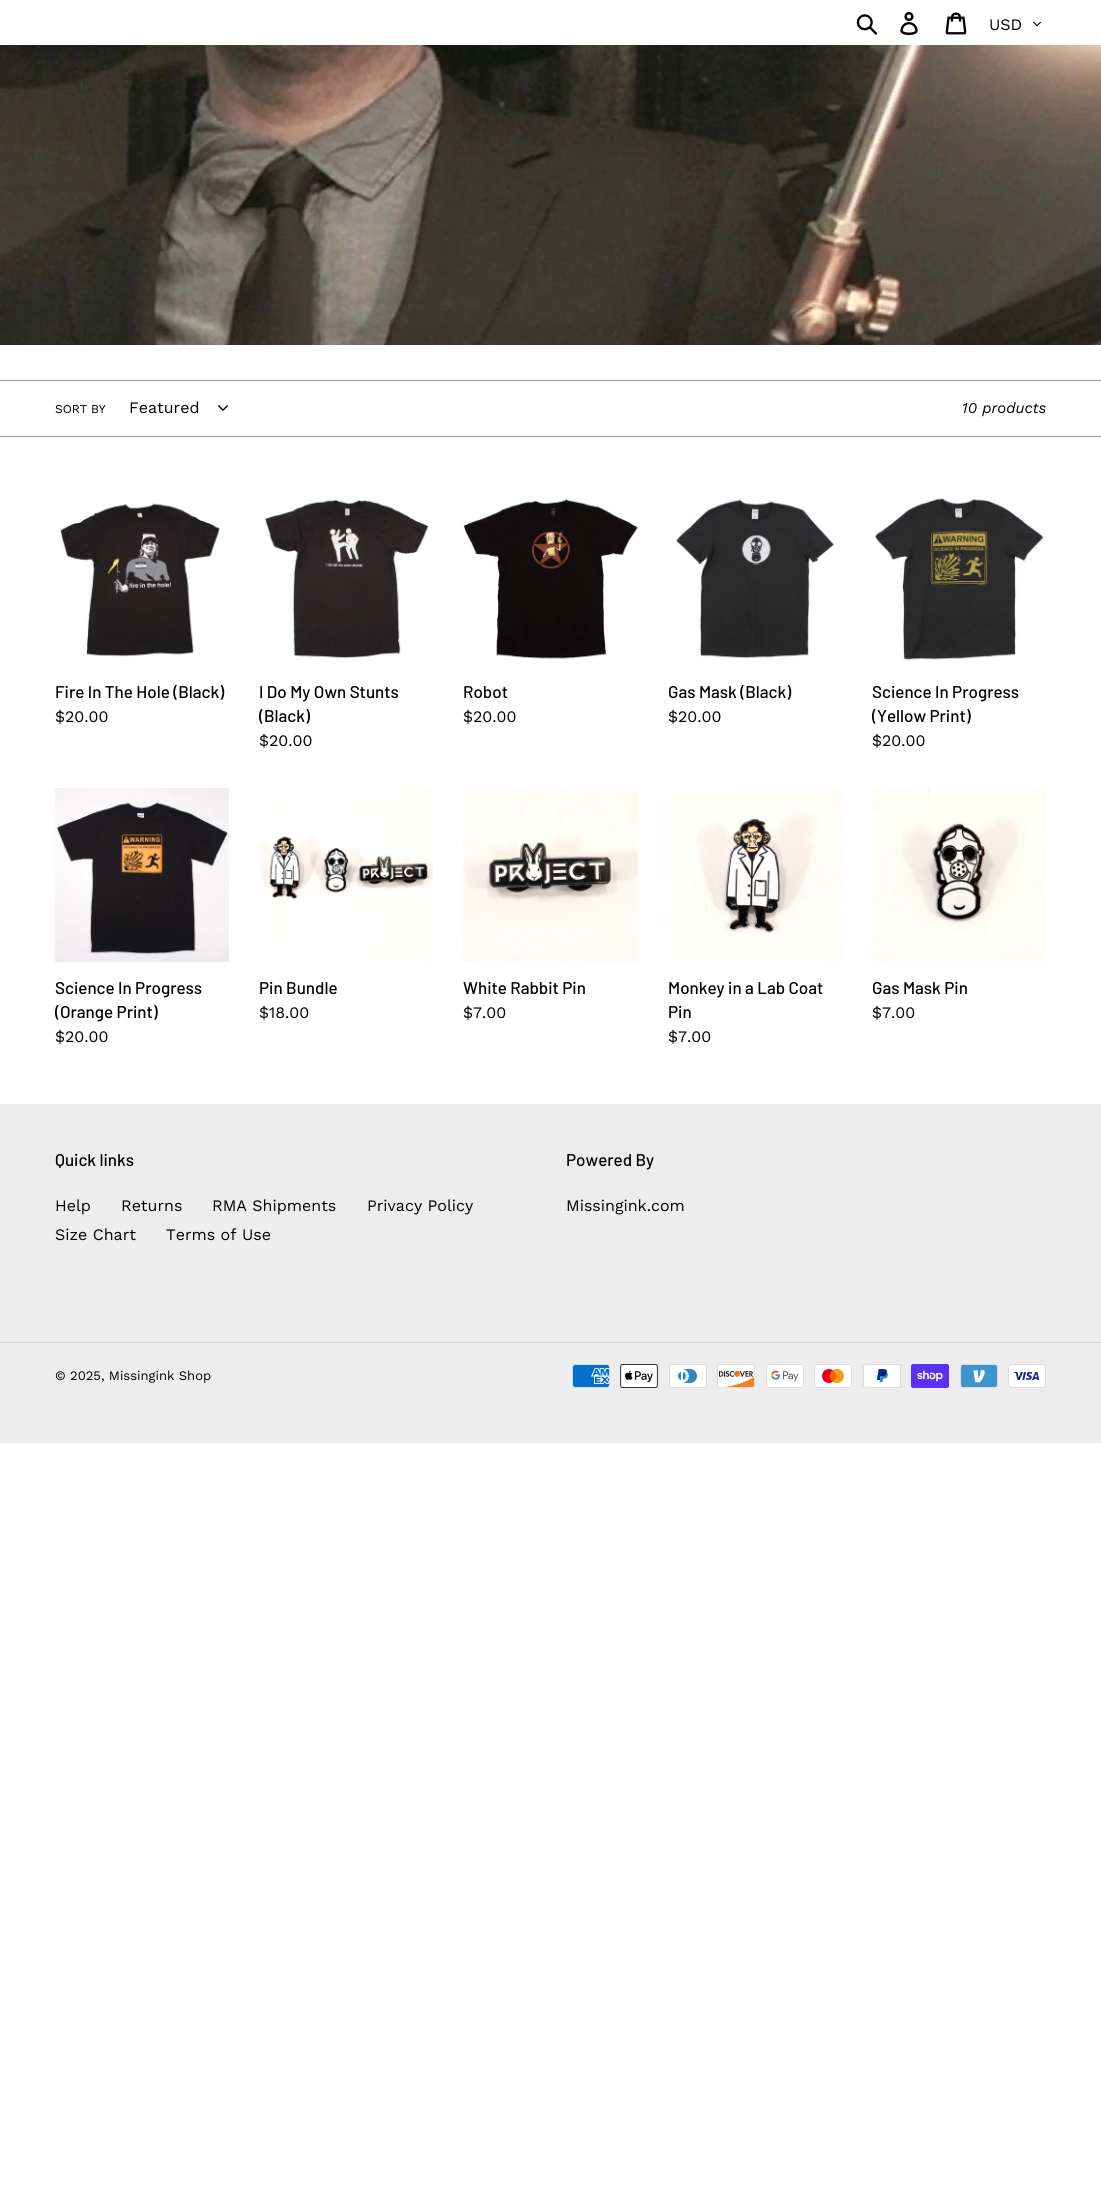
#include <cairo.h>
#include <math.h>
#include <stddef.h>

typedef struct { const char *family; double size; int italic, bold; unsigned color; } style_t;
static cairo_t *ctx;

static void ink(unsigned color) {
    cairo_set_source_rgb(ctx, (color >> 16) / 255.0, (color >> 8 & 255) / 255.0, (color & 255) / 255.0);
}

static void write(double x, double y, const char *s, const style_t *st) {
    cairo_select_font_face(ctx, st->family, st->italic ? CAIRO_FONT_SLANT_ITALIC : CAIRO_FONT_SLANT_NORMAL,
        st->bold ? CAIRO_FONT_WEIGHT_BOLD : CAIRO_FONT_WEIGHT_NORMAL);
    cairo_set_font_size(ctx, st->size);
    ink(st->color);
    cairo_move_to(ctx, x, y);
    cairo_show_text(ctx, s);
}

static void block(double x, double y, double w, double h, unsigned color) {
    ink(color);
    cairo_rectangle(ctx, x, y, w, h);
    cairo_fill(ctx);
}

static void paste(const char *path, double x, double y, double w, double h) {
    cairo_surface_t *image = cairo_image_surface_create_from_png(path);
    cairo_save(ctx);
    cairo_set_source_surface(ctx, image, x, y);
    cairo_rectangle(ctx, x, y, w, h);
    cairo_fill(ctx);
    cairo_restore(ctx);
    cairo_surface_destroy(image);
}

static const style_t s1 = {"Work Sans", 16, 0, 0, 0x000000};
static const style_t s2 = {"Work Sans", 12, 0, 0, 0x000000};
static const style_t s3 = {"Work Sans", 15, 1, 0, 0x000000};
static const style_t s4 = {"Barlow Medium", 17, 0, 0, 0x000000};
static const style_t s5 = {"Work Sans", 13, 0, 0, 0x000000};

int main(void) {
    cairo_surface_t *surface = cairo_image_surface_create(CAIRO_FORMAT_RGB24, 1101, 2195);
    ctx = cairo_create(surface);
    cairo_font_options_t *options = cairo_font_options_create();
    cairo_font_options_set_hint_metrics(options, CAIRO_HINT_METRICS_OFF);
    cairo_font_options_set_hint_style(options, CAIRO_HINT_STYLE_NONE);
    cairo_set_font_options(ctx, options);
    cairo_set_miter_limit(ctx, 4);
    ink(0xffffff);
    cairo_paint(ctx);
    paste("pic1.png", 856, 14, 22, 21);
    paste("pic2.png", 900, 12, 18, 23);
    paste("pic3.png", 945, 12, 22, 23);
    write(989, 30, "USD", &s1);
    paste("pic4.png", 1033, 21, 8, 6);
    paste("pic5.png", 0, 45, 1101, 300);
    block(0, 380, 1101, 1, 0x949494);
    block(0, 436, 1101, 1, 0x949494);
    write(55, 413, "SORT BY", &s2);
    write(129, 413, "Featured", &s1);
    paste("pic6.png", 218, 405, 10, 6);
    write(962, 413, "10 products", &s3);
    paste("pic7.png", 60, 503, 160, 155);
    write(55, 698, "Fire In The Hole (Black)", &s4);
    write(55, 722, "$20.00", &s1);
    paste("pic8.png", 264, 499, 165, 160);
    write(259, 698, "I Do My Own Stunts", &s4);
    write(259, 722, "(Black)", &s4);
    write(259, 746, "$20.00", &s1);
    paste("pic9.png", 463, 499, 175, 160);
    write(463, 698, "Robot", &s4);
    write(463, 722, "$20.00", &s1);
    paste("pic10.png", 675, 499, 160, 160);
    write(668, 698, "Gas Mask (Black)", &s4);
    write(668, 722, "$20.00", &s1);
    paste("pic11.png", 874, 498, 170, 162);
    write(872, 698, "Science In Progress", &s4);
    write(872, 722, "(Yellow Print)", &s4);
    write(872, 746, "$20.00", &s1);
    paste("pic12.png", 55, 788, 174, 174);
    write(55, 994, "Science In Progress", &s4);
    write(55, 1018, "(Orange Print)", &s4);
    write(55, 1042, "$20.00", &s1);
    paste("pic13.png", 259, 788, 174, 174);
    write(259, 994, "Pin Bundle", &s4);
    write(259, 1018, "$18.00", &s1);
    paste("pic14.png", 463, 788, 175, 174);
    write(463, 994, "White Rabbit Pin", &s4);
    write(463, 1018, "$7.00", &s1);
    paste("pic15.png", 668, 788, 174, 174);
    write(668, 994, "Monkey in a Lab Coat", &s4);
    write(668, 1018, "Pin", &s4);
    write(668, 1042, "$7.00", &s1);
    paste("pic16.png", 872, 788, 174, 174);
    write(872, 994, "Gas Mask Pin", &s4);
    write(872, 1018, "$7.00", &s1);
    block(0, 1104, 1101, 339, 0xededed);
    write(55, 1166, "Quick links", &s4);
    write(55, 1211, "Help", &s1);
    write(121, 1211, "Returns", &s1);
    write(212, 1211, "RMA Shipments", &s1);
    write(367, 1211, "Privacy Policy", &s1);
    write(55, 1240, "Size Chart", &s1);
    write(166, 1240, "Terms of Use", &s1);
    write(566, 1166, "Powered By", &s4);
    write(566, 1211, "Missingink.com", &s1);
    block(0, 1342, 1101, 1, 0xd3d3d3);
    write(55, 1380, "© 2025, Missingink Shop", &s5);
    paste("pic17.png", 572, 1364, 38, 24);
    paste("pic18.png", 620, 1364, 38, 24);
    paste("pic19.png", 669, 1364, 38, 24);
    paste("pic20.png", 717, 1364, 38, 24);
    paste("pic21.png", 766, 1364, 38, 24);
    paste("pic22.png", 814, 1364, 38, 24);
    paste("pic23.png", 863, 1364, 38, 24);
    paste("pic24.png", 911, 1364, 38, 24);
    paste("pic25.png", 960, 1364, 38, 24);
    paste("pic26.png", 1008, 1364, 38, 24);
    cairo_surface_write_to_png(surface, "screenshot.png");
    cairo_font_options_destroy(options);
    cairo_destroy(ctx);
    cairo_surface_destroy(surface);
    return 0;
}
